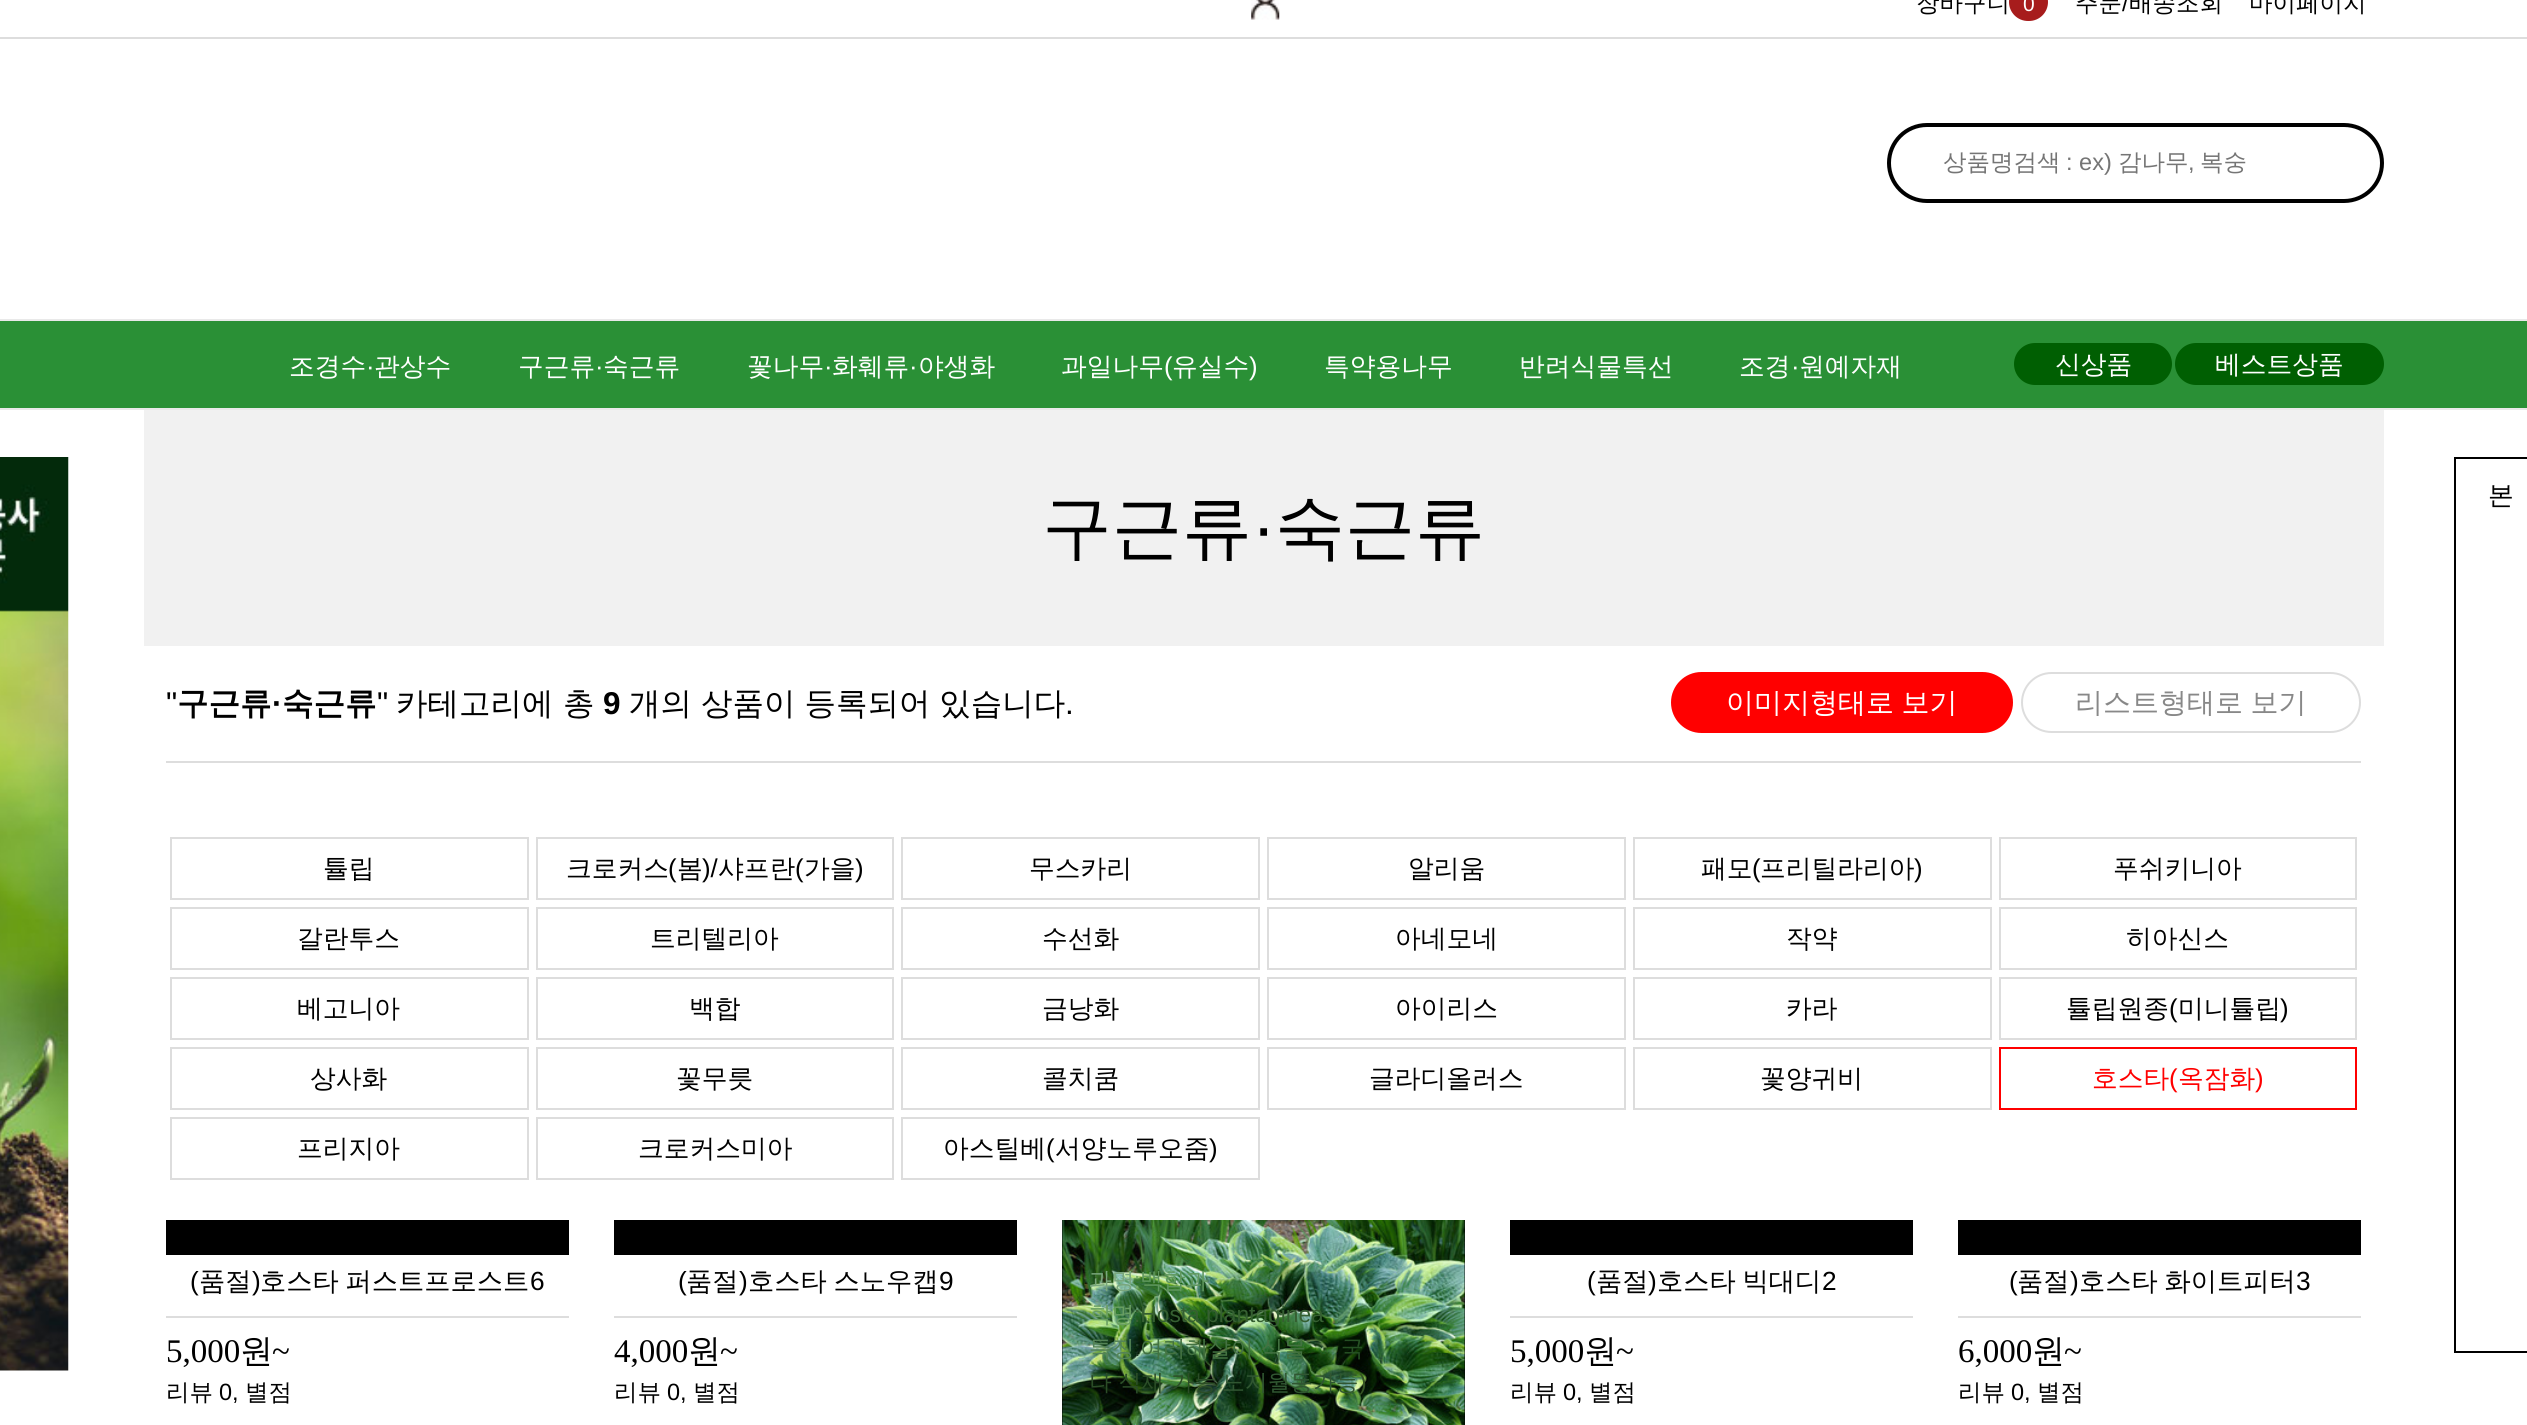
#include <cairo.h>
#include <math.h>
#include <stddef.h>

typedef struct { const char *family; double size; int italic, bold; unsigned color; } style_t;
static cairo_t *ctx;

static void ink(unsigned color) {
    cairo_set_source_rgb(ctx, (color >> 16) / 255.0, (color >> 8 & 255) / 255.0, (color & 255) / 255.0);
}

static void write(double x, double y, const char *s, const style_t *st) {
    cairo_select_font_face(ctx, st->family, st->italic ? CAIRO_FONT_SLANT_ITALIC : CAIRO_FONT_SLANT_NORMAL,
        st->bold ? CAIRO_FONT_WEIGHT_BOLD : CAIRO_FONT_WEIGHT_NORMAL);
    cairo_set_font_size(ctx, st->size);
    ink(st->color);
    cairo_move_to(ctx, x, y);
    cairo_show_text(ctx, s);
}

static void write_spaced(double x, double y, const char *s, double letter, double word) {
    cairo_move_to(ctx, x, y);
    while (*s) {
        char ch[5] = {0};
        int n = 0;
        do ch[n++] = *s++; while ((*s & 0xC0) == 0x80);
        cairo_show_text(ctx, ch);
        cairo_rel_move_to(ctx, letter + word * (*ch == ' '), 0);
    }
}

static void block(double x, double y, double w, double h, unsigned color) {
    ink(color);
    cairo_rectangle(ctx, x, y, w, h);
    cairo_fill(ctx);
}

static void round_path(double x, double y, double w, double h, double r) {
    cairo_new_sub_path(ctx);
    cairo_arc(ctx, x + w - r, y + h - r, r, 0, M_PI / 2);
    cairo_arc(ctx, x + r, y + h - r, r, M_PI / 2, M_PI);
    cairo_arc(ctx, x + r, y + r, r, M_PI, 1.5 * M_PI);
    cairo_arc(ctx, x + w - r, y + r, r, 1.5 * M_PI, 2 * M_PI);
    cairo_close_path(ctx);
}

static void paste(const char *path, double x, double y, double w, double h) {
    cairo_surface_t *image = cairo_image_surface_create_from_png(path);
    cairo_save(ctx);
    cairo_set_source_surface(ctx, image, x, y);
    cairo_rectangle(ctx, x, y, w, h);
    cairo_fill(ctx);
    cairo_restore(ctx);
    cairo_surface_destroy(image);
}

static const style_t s1 = {"WenQuanYi Zen Hei Medium", 23.5, 0, 0, 0x000000};
static const style_t s2 = {"Liberation Sans", 21, 0, 0, 0xffffff};
static const style_t s3 = {"Liberation Sans", 23.5, 0, 0, 0x000000};
static const style_t s4 = {"WenQuanYi Zen Hei Medium", 23.5, 0, 0, 0x757575};
static const style_t s5 = {"Liberation Sans", 23.5, 0, 0, 0x757575};
static const style_t s6 = {"WenQuanYi Zen Hei Medium", 25.75, 0, 0, 0xffffff};
static const style_t s7 = {"Liberation Sans", 25.75, 0, 0, 0xffffff};
static const style_t s8 = {"WenQuanYi Zen Hei Medium", 70, 0, 0, 0x000000};
static const style_t s9 = {"Liberation Sans", 70, 0, 0, 0x000000};
static const style_t s10 = {"Liberation Sans", 31.5, 0, 0, 0x000000};
static const style_t s11 = {"WenQuanYi Zen Hei", 31.5, 0, 1, 0x000000};
static const style_t s12 = {"Liberation Sans", 31.5, 0, 1, 0x000000};
static const style_t s13 = {"WenQuanYi Zen Hei Medium", 31.5, 0, 0, 0x000000};
static const style_t s14 = {"WenQuanYi Zen Hei Medium", 25.75, 0, 0, 0x000000};
static const style_t s15 = {"Liberation Sans", 25.75, 0, 0, 0x000000};
static const style_t s16 = {"WenQuanYi Zen Hei Medium", 25.75, 0, 0, 0xff0000};
static const style_t s17 = {"Liberation Sans", 25.75, 0, 0, 0xff0000};
static const style_t s18 = {"Liberation Sans", 26.25, 0, 0, 0x000000};
static const style_t s19 = {"WenQuanYi Zen Hei Medium", 26.25, 0, 0, 0x000000};
static const style_t s20 = {"Liberation Serif", 33, 0, 0, 0x000000};
static const style_t s21 = {"WenQuanYi Zen Hei Medium", 33, 0, 0, 0x000000};
static const style_t s22 = {"WenQuanYi Zen Hei Medium", 22.75, 0, 0, 0x79a67c};
static const style_t s23 = {"Liberation Sans", 22.75, 0, 0, 0x78ad67};
static const style_t s24 = {"WenQuanYi Zen Hei Medium", 22.75, 0, 0, 0x5f975d};
static const style_t s25 = {"WenQuanYi Zen Hei Medium", 22.75, 0, 0, 0x699f61};
static const style_t s26 = {"Liberation Sans", 22.75, 0, 0, 0x355f31};
static const style_t s27 = {"WenQuanYi Zen Hei Medium", 22.75, 0, 0, 0x548356};
static const style_t s28 = {"Liberation Sans", 22.75, 0, 0, 0x203d27};
static const style_t s29 = {"WenQuanYi Zen Hei Medium", 22.75, 0, 0, 0x437241};
static const style_t s30 = {"WenQuanYi Zen Hei Medium", 22.75, 0, 0, 0x255023};
static const style_t s31 = {"WenQuanYi Zen Hei Medium", 22.75, 0, 0, 0x2b4d27};
static const style_t s32 = {"WenQuanYi Zen Hei Medium", 22.75, 0, 0, 0x305631};
static const style_t s33 = {"Liberation Sans", 22.75, 0, 0, 0x355423};

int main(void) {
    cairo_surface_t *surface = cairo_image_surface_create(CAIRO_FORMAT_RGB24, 2527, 1425);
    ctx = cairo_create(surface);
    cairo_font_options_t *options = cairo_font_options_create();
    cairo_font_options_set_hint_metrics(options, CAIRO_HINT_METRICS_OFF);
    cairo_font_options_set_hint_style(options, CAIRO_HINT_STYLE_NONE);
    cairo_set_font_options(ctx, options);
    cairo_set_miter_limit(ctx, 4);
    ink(0xffffff);
    cairo_paint(ctx);
    block(0, 37, 2527, 2, 0xdddddd);
    paste("pic1.png", 1251, 0, 29, 20);
    write(1916, 11, "장바구니", &s1);
    ink(0xa71c1c);
    round_path(2010, -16, 37, 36, 18);
    cairo_fill_preserve(ctx);
    cairo_stroke(ctx);
    write(2023, 11, "0", &s2);
    write(2075, 11, "주문", &s1);
    write(2122, 11, "/", &s3);
    write(2129, 11, "배송조회", &s1);
    write(2249, 11, "마이페이지", &s1);
    round_path(1889, 125, 493, 76, 38);
    cairo_set_line_width(ctx, 4);
    cairo_stroke(ctx);
    write(1943, 170, "상품명검색", &s4);
    write(2066, 170, ": ex)", &s5);
    write(2118, 170, "감나무", &s4);
    write(2188, 170, ",", &s5);
    write(2200, 170, "복숭", &s4);
    block(0, 321, 2527, 87, 0x2a9036);
    block(0, 319, 2527, 2, 0xe9e9e9);
    block(0, 408, 2527, 2, 0xe9e9e9);
    write(289, 375, "조경수", &s6);
    write(366, 375, "·", &s7);
    write(374, 375, "관상수", &s6);
    write(518, 375, "구근류", &s6);
    write(595, 375, "·", &s7);
    write(603, 375, "숙근류", &s6);
    write(747, 375, "꽃나무", &s6);
    write(824, 375, "·", &s7);
    write(832, 375, "화훼류", &s6);
    write(909, 375, "·", &s7);
    write(918, 375, "야생화", &s6);
    write(1061, 375, "과일나무", &s6);
    write(1164, 375, "(", &s7);
    write(1172, 375, "유실수", &s6);
    write(1249, 375, ")", &s7);
    write(1324, 375, "특약용나무", &s6);
    write(1519, 375, "반려식물특선", &s6);
    write(1739, 375, "조경", &s6);
    write(1791, 375, "·", &s7);
    write(1799, 375, "원예자재", &s6);
    ink(0x005f02);
    round_path(2014, 343, 158, 42, 21);
    cairo_fill(ctx);
    write(2055, 373, "신상품", &s6);
    ink(0x005f02);
    round_path(2175, 343, 209, 42, 21);
    cairo_fill(ctx);
    write(2215, 373, "베스트상품", &s6);
    paste("pic2.png", 0, 457, 69, 914);
    block(144, 410, 2240, 236, 0xf1f1f1);
    write(1042, 551, "구근류", &s8);
    write(1252, 551, "·", &s9);
    write(1275, 551, "숙근류", &s8);
    write(166, 714, "\"", &s10);
    write(177, 714, "구근류", &s11);
    write(272, 714, "·", &s12);
    write(282, 714, "숙근류", &s11);
    write(377, 714, "\"", &s10);
    write(396, 714, "카테고리에 총", &s13);
    write(603, 714, "9", &s12);
    cairo_select_font_face(ctx, "WenQuanYi Zen Hei Medium", CAIRO_FONT_SLANT_NORMAL, CAIRO_FONT_WEIGHT_NORMAL);
    write_spaced(629, 714, "개의 상품이 등록되어 있습니다", 0, -0.5);
    write(1065, 714, ".", &s10);
    ink(0xff0000);
    round_path(1672, 673, 340, 59, 29.5);
    cairo_fill_preserve(ctx);
    cairo_set_line_width(ctx, 2);
    cairo_stroke(ctx);
    cairo_select_font_face(ctx, "WenQuanYi Zen Hei Medium", CAIRO_FONT_SLANT_NORMAL, CAIRO_FONT_WEIGHT_NORMAL);
    cairo_set_font_size(ctx, 28);
    ink(0xffffff);
    write_spaced(1726, 712, "이미지형태로 보기", 0, -1);
    round_path(2022, 673, 338, 59, 29.5);
    ink(0xdddddd);
    cairo_stroke(ctx);
    ink(0x888888);
    write_spaced(2075, 712, "리스트형태로 보기", 0, -1);
    block(166, 761, 2195, 2, 0xdddddd);
    cairo_rectangle(ctx, 171, 838, 357, 61);
    cairo_stroke(ctx);
    write(323, 877, "튤립", &s14);
    cairo_rectangle(ctx, 537, 838, 356, 61);
    ink(0xdddddd);
    cairo_stroke(ctx);
    write(566, 877, "크로커스", &s14);
    write(668, 877, "(", &s15);
    write(677, 877, "봄", &s14);
    write(702, 877, ")/", &s15);
    write(718, 877, "샤프란", &s14);
    write(795, 877, "(", &s15);
    write(804, 877, "가을", &s14);
    write(855, 877, ")", &s15);
    cairo_rectangle(ctx, 902, 838, 357, 61);
    ink(0xdddddd);
    cairo_stroke(ctx);
    write(1029, 877, "무스카리", &s14);
    cairo_rectangle(ctx, 1268, 838, 357, 61);
    ink(0xdddddd);
    cairo_stroke(ctx);
    write(1408, 877, "알리움", &s14);
    cairo_rectangle(ctx, 1634, 838, 357, 61);
    ink(0xdddddd);
    cairo_stroke(ctx);
    write(1701, 877, "패모", &s14);
    write(1752, 877, "(", &s15);
    write(1760, 877, "프리틸라리아", &s14);
    write(1914, 877, ")", &s15);
    cairo_rectangle(ctx, 2000, 838, 356, 61);
    ink(0xdddddd);
    cairo_stroke(ctx);
    write(2113, 877, "푸쉬키니아", &s14);
    cairo_rectangle(ctx, 171, 908, 357, 61);
    ink(0xdddddd);
    cairo_stroke(ctx);
    write(297, 947, "갈란투스", &s14);
    cairo_rectangle(ctx, 537, 908, 356, 61);
    ink(0xdddddd);
    cairo_stroke(ctx);
    write(650, 947, "트리텔리아", &s14);
    cairo_rectangle(ctx, 902, 908, 357, 61);
    ink(0xdddddd);
    cairo_stroke(ctx);
    write(1042, 947, "수선화", &s14);
    cairo_rectangle(ctx, 1268, 908, 357, 61);
    ink(0xdddddd);
    cairo_stroke(ctx);
    write(1395, 947, "아네모네", &s14);
    cairo_rectangle(ctx, 1634, 908, 357, 61);
    ink(0xdddddd);
    cairo_stroke(ctx);
    write(1786, 947, "작약", &s14);
    cairo_rectangle(ctx, 2000, 908, 356, 61);
    ink(0xdddddd);
    cairo_stroke(ctx);
    write(2126, 947, "히아신스", &s14);
    cairo_rectangle(ctx, 171, 978, 357, 61);
    ink(0xdddddd);
    cairo_stroke(ctx);
    write(297, 1017, "베고니아", &s14);
    cairo_rectangle(ctx, 537, 978, 356, 61);
    ink(0xdddddd);
    cairo_stroke(ctx);
    write(689, 1017, "백합", &s14);
    cairo_rectangle(ctx, 902, 978, 357, 61);
    ink(0xdddddd);
    cairo_stroke(ctx);
    write(1042, 1017, "금낭화", &s14);
    cairo_rectangle(ctx, 1268, 978, 357, 61);
    ink(0xdddddd);
    cairo_stroke(ctx);
    write(1395, 1017, "아이리스", &s14);
    cairo_rectangle(ctx, 1634, 978, 357, 61);
    ink(0xdddddd);
    cairo_stroke(ctx);
    write(1786, 1017, "카라", &s14);
    cairo_rectangle(ctx, 2000, 978, 356, 61);
    ink(0xdddddd);
    cairo_stroke(ctx);
    write(2066, 1017, "튤립원종", &s14);
    write(2169, 1017, "(", &s15);
    write(2178, 1017, "미니튤립", &s14);
    write(2280, 1017, ")", &s15);
    cairo_rectangle(ctx, 171, 1048, 357, 61);
    ink(0xdddddd);
    cairo_stroke(ctx);
    write(310, 1087, "상사화", &s14);
    cairo_rectangle(ctx, 537, 1048, 356, 61);
    ink(0xdddddd);
    cairo_stroke(ctx);
    write(676, 1087, "꽃무릇", &s14);
    cairo_rectangle(ctx, 902, 1048, 357, 61);
    ink(0xdddddd);
    cairo_stroke(ctx);
    write(1042, 1087, "콜치쿰", &s14);
    cairo_rectangle(ctx, 1268, 1048, 357, 61);
    ink(0xdddddd);
    cairo_stroke(ctx);
    write(1369, 1087, "글라디올러스", &s14);
    cairo_rectangle(ctx, 1634, 1048, 357, 61);
    ink(0xdddddd);
    cairo_stroke(ctx);
    write(1760, 1087, "꽃양귀비", &s14);
    cairo_rectangle(ctx, 2000, 1048, 356, 61);
    ink(0xff0000);
    cairo_stroke(ctx);
    write(2092, 1087, "호스타", &s16);
    write(2169, 1087, "(", &s17);
    write(2178, 1087, "옥잠화", &s16);
    write(2255, 1087, ")", &s17);
    cairo_rectangle(ctx, 171, 1118, 357, 61);
    ink(0xdddddd);
    cairo_stroke(ctx);
    write(297, 1157, "프리지아", &s14);
    cairo_rectangle(ctx, 537, 1118, 356, 61);
    ink(0xdddddd);
    cairo_stroke(ctx);
    write(638, 1157, "크로커스미아", &s14);
    cairo_rectangle(ctx, 902, 1118, 357, 61);
    ink(0xdddddd);
    cairo_stroke(ctx);
    write(943, 1157, "아스틸베", &s14);
    write(1046, 1157, "(", &s15);
    write(1055, 1157, "서양노루오줌", &s14);
    write(1209, 1157, ")", &s15);
    block(166, 1220, 403, 35, 0x000000);
    block(166, 1316, 403, 2, 0xdddddd);
    write(190, 1290, "(", &s18);
    write(199, 1290, "품절", &s19);
    write(252, 1290, ")", &s18);
    cairo_select_font_face(ctx, "WenQuanYi Zen Hei Medium", CAIRO_FONT_SLANT_NORMAL, CAIRO_FONT_WEIGHT_NORMAL);
    write_spaced(260, 1290, "호스타 퍼스트프로스트", 0, -1);
    write(530, 1290, "6", &s18);
    write(166, 1362, "5,000", &s20);
    write(240, 1362, "원", &s21);
    write(272, 1362, "~", &s20);
    write(166, 1400, "리뷰", &s1);
    write(219, 1400, "0,", &s3);
    write(245, 1400, "별점", &s1);
    block(614, 1220, 403, 35, 0x000000);
    block(614, 1316, 403, 2, 0xdddddd);
    write(678, 1290, "(", &s18);
    write(686, 1290, "품절", &s19);
    write(739, 1290, ")", &s18);
    cairo_select_font_face(ctx, "WenQuanYi Zen Hei Medium", CAIRO_FONT_SLANT_NORMAL, CAIRO_FONT_WEIGHT_NORMAL);
    write_spaced(748, 1290, "호스타 스노우캡", 0, -1);
    write(939, 1290, "9", &s18);
    write(614, 1362, "4,000", &s20);
    write(688, 1362, "원", &s21);
    write(720, 1362, "~", &s20);
    write(614, 1400, "리뷰", &s1);
    write(667, 1400, "0,", &s3);
    write(693, 1400, "별점", &s1);
    block(1062, 1220, 403, 205, 0x000000);
    paste("pic3.png", 1062, 1220, 403, 205);
    write(1089, 1288, "과명", &s22);
    write(1134, 1288, ":", &s23);
    write(1140, 1288, "백합과", &s24);
    write(1089, 1322, "학명", &s25);
    write(1134, 1322, ":Hosta plantaginea", &s26);
    write(1089, 1356, "특징", &s27);
    write(1134, 1356, ":", &s28);
    write(1140, 1356, "여러해살이 식물", &s29);
    write(1341, 1356, "국", &s30);
    write(1089, 1390, "나 식재 가능", &s31);
    write(1222, 1390, "노지월동가능", &s32);
    write(1359, 1390, ")", &s33);
    block(1510, 1220, 403, 35, 0x000000);
    block(1510, 1316, 403, 2, 0xdddddd);
    write(1587, 1290, "(", &s18);
    write(1596, 1290, "품절", &s19);
    write(1648, 1290, ")", &s18);
    cairo_select_font_face(ctx, "WenQuanYi Zen Hei Medium", CAIRO_FONT_SLANT_NORMAL, CAIRO_FONT_WEIGHT_NORMAL);
    write_spaced(1657, 1290, "호스타 빅대디", 0, -1);
    write(1822, 1290, "2", &s18);
    write(1510, 1362, "5,000", &s20);
    write(1584, 1362, "원", &s21);
    write(1616, 1362, "~", &s20);
    write(1510, 1400, "리뷰", &s1);
    write(1563, 1400, "0,", &s3);
    write(1589, 1400, "별점", &s1);
    block(1958, 1220, 403, 35, 0x000000);
    block(1958, 1316, 403, 2, 0xdddddd);
    write(2009, 1290, "(", &s18);
    write(2017, 1290, "품절", &s19);
    write(2070, 1290, ")", &s18);
    cairo_select_font_face(ctx, "WenQuanYi Zen Hei Medium", CAIRO_FONT_SLANT_NORMAL, CAIRO_FONT_WEIGHT_NORMAL);
    write_spaced(2079, 1290, "호스타 화이트피터", 0, -1);
    write(2296, 1290, "3", &s18);
    write(1958, 1362, "6,000", &s20);
    write(2032, 1362, "원", &s21);
    write(2064, 1362, "~", &s20);
    write(1958, 1400, "리뷰", &s1);
    write(2011, 1400, "0,", &s3);
    write(2037, 1400, "별점", &s1);
    cairo_rectangle(ctx, 2455, 458, 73, 894);
    cairo_stroke(ctx);
    write(2488, 504, "본", &s14);
    cairo_surface_write_to_png(surface, "screenshot.png");
    cairo_font_options_destroy(options);
    cairo_destroy(ctx);
    cairo_surface_destroy(surface);
    return 0;
}
